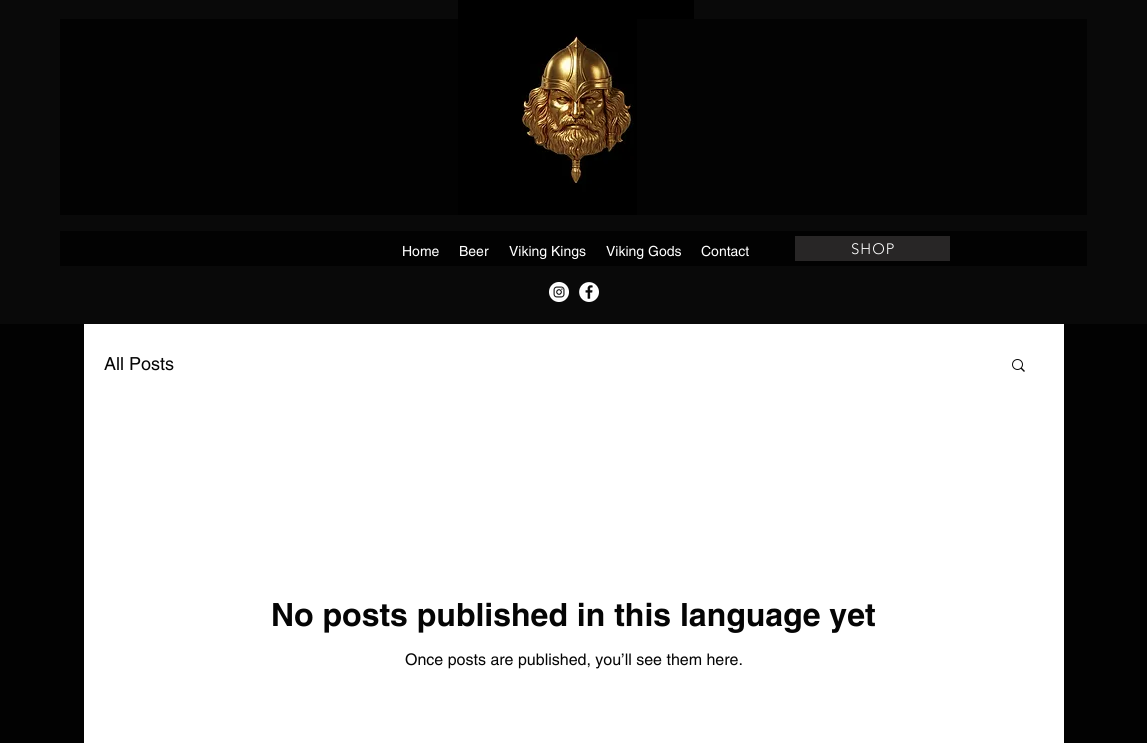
#include <cairo.h>
#include <math.h>
#include <stddef.h>

typedef struct { const char *family; double size; int italic, bold; unsigned color; } style_t;
static cairo_t *ctx;

static void ink(unsigned color) {
    cairo_set_source_rgb(ctx, (color >> 16) / 255.0, (color >> 8 & 255) / 255.0, (color & 255) / 255.0);
}

static void write(double x, double y, const char *s, const style_t *st) {
    cairo_select_font_face(ctx, st->family, st->italic ? CAIRO_FONT_SLANT_ITALIC : CAIRO_FONT_SLANT_NORMAL,
        st->bold ? CAIRO_FONT_WEIGHT_BOLD : CAIRO_FONT_WEIGHT_NORMAL);
    cairo_set_font_size(ctx, st->size);
    ink(st->color);
    cairo_move_to(ctx, x, y);
    cairo_show_text(ctx, s);
}

static void write_spaced(double x, double y, const char *s, double letter, double word) {
    cairo_move_to(ctx, x, y);
    while (*s) {
        char ch[5] = {0};
        int n = 0;
        do ch[n++] = *s++; while ((*s & 0xC0) == 0x80);
        cairo_show_text(ctx, ch);
        cairo_rel_move_to(ctx, letter + word * (*ch == ' '), 0);
    }
}

static void block(double x, double y, double w, double h, unsigned color) {
    ink(color);
    cairo_rectangle(ctx, x, y, w, h);
    cairo_fill(ctx);
}

static void paste(const char *path, double x, double y, double w, double h) {
    cairo_surface_t *image = cairo_image_surface_create_from_png(path);
    cairo_save(ctx);
    cairo_set_source_surface(ctx, image, x, y);
    cairo_rectangle(ctx, x, y, w, h);
    cairo_fill(ctx);
    cairo_restore(ctx);
    cairo_surface_destroy(image);
}

static const style_t s1 = {"helvetica", 14, 0, 0, 0xffffff};
static const style_t s2 = {"helvetica", 18, 0, 0, 0x050505};
static const style_t s3 = {"helvetica", 32, 0, 1, 0x050505};
static const style_t s4 = {"helvetica", 16, 0, 0, 0x050505};

int main(void) {
    cairo_surface_t *surface = cairo_image_surface_create(CAIRO_FORMAT_RGB24, 1147, 743);
    ctx = cairo_create(surface);
    cairo_font_options_t *options = cairo_font_options_create();
    cairo_font_options_set_hint_metrics(options, CAIRO_HINT_METRICS_OFF);
    cairo_font_options_set_hint_style(options, CAIRO_HINT_STYLE_NONE);
    cairo_set_font_options(ctx, options);
    cairo_set_miter_limit(ctx, 4);
    ink(0x020202);
    cairo_paint(ctx);
    block(0, 0, 1147, 324, 0x090909);
    block(60, 19, 398, 196, 0x020202);
    paste("pic1.png", 458, 0, 236, 215);
    block(637, 19, 450, 196, 0x030303);
    block(60, 231, 1027, 35, 0x020202);
    write(402, 256, "Home", &s1);
    write(459, 256, "Beer", &s1);
    write(509, 256, "Viking Kings", &s1);
    write(606, 256, "Viking Gods", &s1);
    write(701, 256, "Contact", &s1);
    block(795, 236, 155, 25, 0x282626);
    cairo_select_font_face(ctx, "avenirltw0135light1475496 Light", CAIRO_FONT_SLANT_NORMAL, CAIRO_FONT_WEIGHT_NORMAL);
    cairo_set_font_size(ctx, 15);
    ink(0xffffff);
    write_spaced(851, 254, "SHOP", 1, 0);
    paste("pic2.png", 549, 282, 20, 20);
    paste("pic3.png", 579, 282, 20, 20);
    block(84, 324, 980, 419, 0xffffff);
    write(104, 370, "All Posts", &s2);
    paste("pic4.png", 1012, 359, 13, 13);
    write(271, 626, "No posts published in this language yet", &s3);
    write(405, 665, "Once posts are published, you’ll see them here.", &s4);
    cairo_surface_write_to_png(surface, "screenshot.png");
    cairo_font_options_destroy(options);
    cairo_destroy(ctx);
    cairo_surface_destroy(surface);
    return 0;
}
